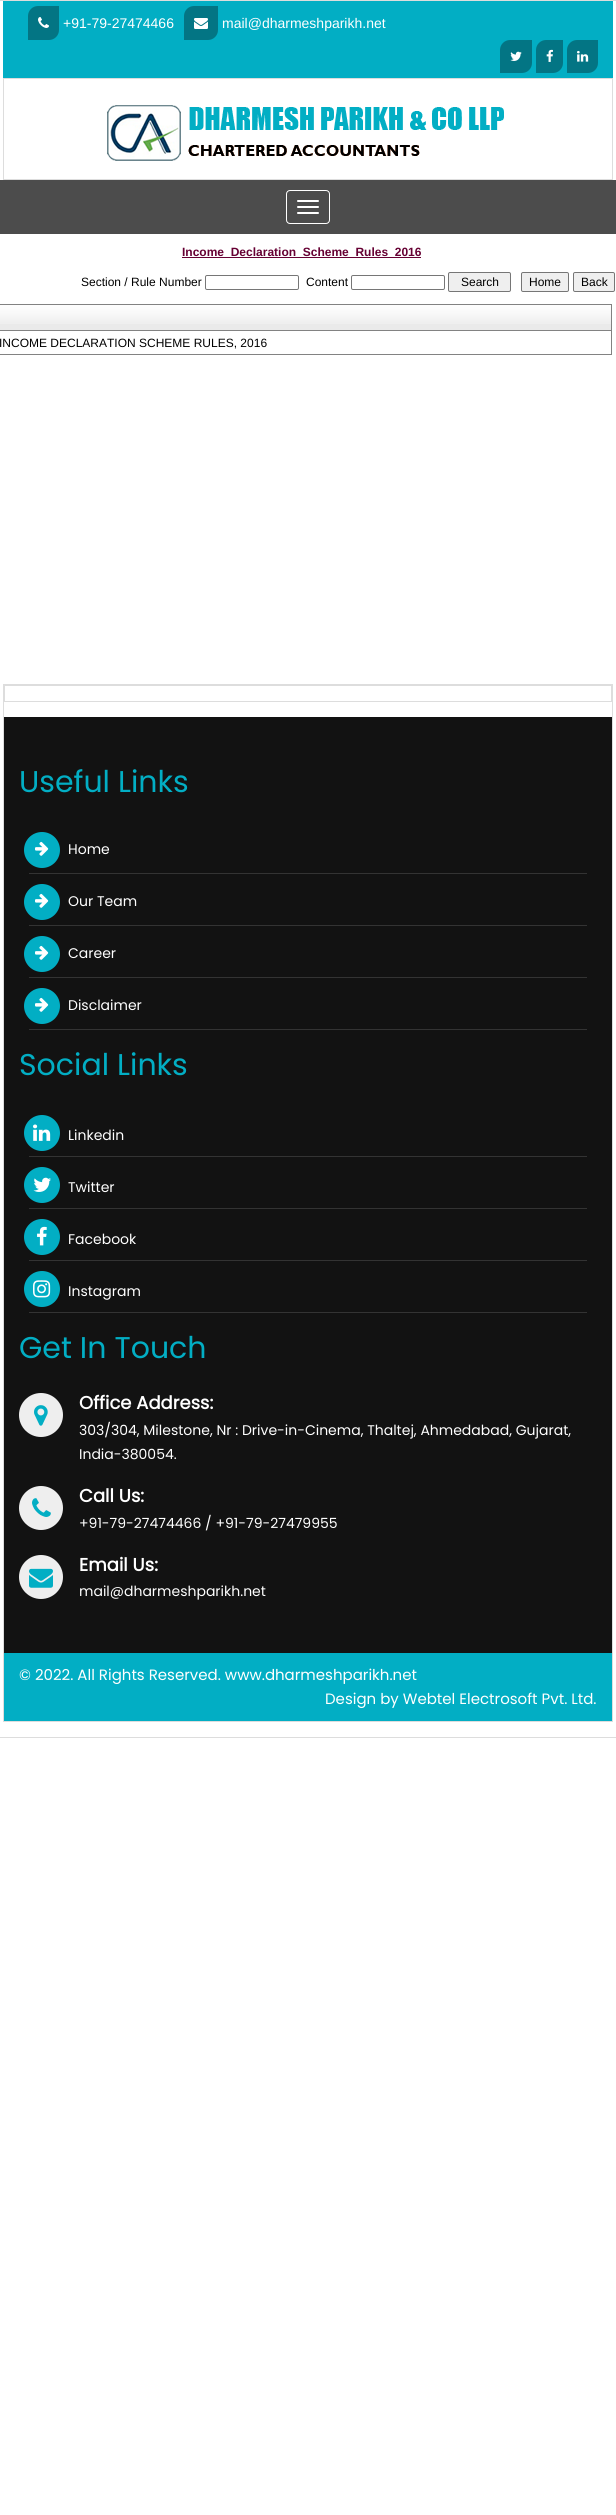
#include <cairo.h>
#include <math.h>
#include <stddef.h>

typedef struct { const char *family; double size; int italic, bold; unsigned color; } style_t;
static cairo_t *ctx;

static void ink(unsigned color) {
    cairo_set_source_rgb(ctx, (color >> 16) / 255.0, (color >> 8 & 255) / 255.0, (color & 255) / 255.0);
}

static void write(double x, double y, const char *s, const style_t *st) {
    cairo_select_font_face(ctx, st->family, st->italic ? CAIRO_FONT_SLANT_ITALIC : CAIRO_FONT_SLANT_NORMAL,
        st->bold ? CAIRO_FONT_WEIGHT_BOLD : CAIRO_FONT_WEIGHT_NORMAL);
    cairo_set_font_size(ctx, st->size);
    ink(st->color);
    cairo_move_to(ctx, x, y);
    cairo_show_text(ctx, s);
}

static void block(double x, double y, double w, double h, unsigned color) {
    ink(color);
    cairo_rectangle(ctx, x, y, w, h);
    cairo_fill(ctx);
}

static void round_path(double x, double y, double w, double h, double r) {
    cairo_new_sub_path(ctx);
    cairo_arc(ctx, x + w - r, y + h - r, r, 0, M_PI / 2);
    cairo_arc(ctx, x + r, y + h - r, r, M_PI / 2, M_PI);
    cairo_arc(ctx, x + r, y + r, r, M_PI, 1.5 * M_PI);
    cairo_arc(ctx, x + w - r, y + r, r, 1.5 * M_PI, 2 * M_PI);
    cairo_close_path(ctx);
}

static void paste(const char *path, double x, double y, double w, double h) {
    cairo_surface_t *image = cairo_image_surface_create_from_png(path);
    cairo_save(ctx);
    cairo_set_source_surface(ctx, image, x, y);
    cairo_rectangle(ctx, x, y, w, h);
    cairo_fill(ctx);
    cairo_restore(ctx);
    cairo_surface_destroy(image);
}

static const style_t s1 = {"Liberation Sans", 14, 0, 0, 0xffffff};
static const style_t s2 = {"Liberation Sans", 12, 0, 1, 0x660033};
static const style_t s3 = {"Liberation Sans", 12, 0, 0, 0x000000};
static const style_t s4 = {"Poppins", 30, 0, 0, 0x02aec4};
static const style_t s5 = {"Poppins", 14, 0, 0, 0xffffff};
static const style_t s6 = {"Poppins", 18, 0, 1, 0xffffff};
static const style_t s7 = {"Poppins", 15, 0, 0, 0xffffff};

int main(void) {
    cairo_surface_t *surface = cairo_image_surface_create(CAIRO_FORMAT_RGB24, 616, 2515);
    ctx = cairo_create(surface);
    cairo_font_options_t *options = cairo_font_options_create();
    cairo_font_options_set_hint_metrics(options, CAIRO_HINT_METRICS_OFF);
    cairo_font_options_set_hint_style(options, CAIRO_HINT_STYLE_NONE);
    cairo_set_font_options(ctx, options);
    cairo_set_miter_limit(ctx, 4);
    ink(0xffffff);
    cairo_paint(ctx);
    cairo_rectangle(ctx, -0.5, 0.5, 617, 1737);
    ink(0xdddddd);
    cairo_set_line_width(ctx, 1);
    cairo_stroke(ctx);
    block(3, 1, 610, 77, 0x02aec4);
    ink(0x037584);
    cairo_new_path(ctx);
    cairo_move_to(ctx, 38, 6);
    cairo_line_to(ctx, 59, 6);
    cairo_line_to(ctx, 59, 30);
    cairo_curve_to(ctx, 59, 35.5, 54.5, 40, 49, 40);
    cairo_line_to(ctx, 28, 40);
    cairo_line_to(ctx, 28, 16);
    cairo_curve_to(ctx, 28, 10.5, 32.5, 6, 38, 6);
    cairo_close_path(ctx);
    cairo_fill(ctx);
    paste("pic1.png", 38, 17, 11, 11);
    write(63, 28, "+91-79-27474466", &s1);
    ink(0x037584);
    cairo_new_path(ctx);
    cairo_move_to(ctx, 194, 6);
    cairo_line_to(ctx, 218, 6);
    cairo_line_to(ctx, 218, 30);
    cairo_curve_to(ctx, 218, 35.5, 213.5, 40, 208, 40);
    cairo_line_to(ctx, 184, 40);
    cairo_line_to(ctx, 184, 16);
    cairo_curve_to(ctx, 184, 10.5, 188.5, 6, 194, 6);
    cairo_close_path(ctx);
    cairo_fill(ctx);
    paste("pic2.png", 194, 18, 14, 11);
    write(222, 28, "mail@dharmeshparikh.net", &s1);
    ink(0x037584);
    cairo_new_path(ctx);
    cairo_move_to(ctx, 510, 40);
    cairo_line_to(ctx, 532, 40);
    cairo_line_to(ctx, 532, 63);
    cairo_curve_to(ctx, 532, 68.5, 527.5, 73, 522, 73);
    cairo_line_to(ctx, 500, 73);
    cairo_line_to(ctx, 500, 50);
    cairo_curve_to(ctx, 500, 44.5, 504.5, 40, 510, 40);
    cairo_close_path(ctx);
    cairo_fill(ctx);
    paste("pic3.png", 510, 51, 12, 10);
    cairo_new_path(ctx);
    cairo_move_to(ctx, 546, 40);
    cairo_line_to(ctx, 563, 40);
    cairo_line_to(ctx, 563, 63);
    cairo_curve_to(ctx, 563, 68.5, 558.5, 73, 553, 73);
    cairo_line_to(ctx, 536, 73);
    cairo_line_to(ctx, 536, 50);
    cairo_curve_to(ctx, 536, 44.5, 540.5, 40, 546, 40);
    cairo_close_path(ctx);
    cairo_fill(ctx);
    paste("pic4.png", 546, 49, 7, 13);
    cairo_new_path(ctx);
    cairo_move_to(ctx, 577, 40);
    cairo_line_to(ctx, 598, 40);
    cairo_line_to(ctx, 598, 63);
    cairo_curve_to(ctx, 598, 68.5, 593.5, 73, 588, 73);
    cairo_line_to(ctx, 567, 73);
    cairo_line_to(ctx, 567, 50);
    cairo_curve_to(ctx, 567, 44.5, 571.5, 40, 577, 40);
    cairo_close_path(ctx);
    cairo_fill(ctx);
    paste("pic5.png", 577, 50, 12, 12);
    block(3, 78, 610, 1, 0xdddddd);
    block(612, 78, 1, 102, 0xdddddd);
    block(3, 179, 610, 1, 0xdddddd);
    block(3, 78, 1, 102, 0xdddddd);
    paste("pic6.png", 107, 105, 397, 56);
    block(0, 180, 616, 54, 0x4c4c4c);
    round_path(286.5, 190.5, 43, 33, 3.5);
    ink(0xffffff);
    cairo_stroke(ctx);
    round_path(297, 200, 22, 2, 1);
    cairo_fill(ctx);
    round_path(297, 206, 22, 2, 1);
    cairo_fill(ctx);
    round_path(297, 212, 22, 2, 1);
    cairo_fill(ctx);
    block(182, 257, 239, 1, 0x660033);
    write(182, 256, "Income_Declaration_Scheme_Rules_2016", &s2);
    write(81, 286, "Section / Rule Number", &s3);
    round_path(205.5, 275.5, 93, 14, 1.5);
    ink(0x767676);
    cairo_stroke(ctx);
    write(306, 286, "Content", &s3);
    round_path(351.5, 275.5, 93, 14, 1.5);
    ink(0x767676);
    cairo_stroke(ctx);
    ink(0xefefef);
    round_path(448.5, 272.5, 62, 19, 1.5);
    cairo_fill_preserve(ctx);
    ink(0x767676);
    cairo_stroke(ctx);
    write(461, 286, "Search", &s3);
    ink(0xefefef);
    round_path(521.5, 272.5, 47, 19, 1.5);
    cairo_fill_preserve(ctx);
    ink(0x767676);
    cairo_stroke(ctx);
    write(529, 286, "Home", &s3);
    ink(0xefefef);
    round_path(573.5, 272.5, 41, 19, 1.5);
    cairo_fill_preserve(ctx);
    ink(0x767676);
    cairo_stroke(ctx);
    write(581, 286, "Back", &s3);
    cairo_rectangle(ctx, -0.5, 304.5, 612, 50);
    ink(0x828282);
    cairo_stroke(ctx);
    block(0, 324, 611, 6, 0xeaeaea);
    paste("pic7.png", 0, 305, 611, 19);
    block(0, 330, 611, 1, 0x828282);
    write(-1, 347, "INCOME DECLARATION SCHEME RULES, 2016", &s3);
    block(3, 684, 610, 1, 0xdddddd);
    block(612, 684, 1, 1038, 0xdddddd);
    block(3, 1721, 610, 1, 0xdddddd);
    block(3, 684, 1, 1038, 0xdddddd);
    block(4, 685, 608, 1, 0xdddddd);
    block(611, 685, 1, 17, 0xdddddd);
    block(4, 701, 608, 1, 0xdddddd);
    block(4, 685, 1, 17, 0xdddddd);
    block(4, 717, 608, 936, 0x121212);
    write(19, 792, "Useful Links", &s4);
    block(29, 873, 558, 1, 0x333333);
    ink(0x02aec4);
    cairo_new_path(ctx);
    cairo_arc(ctx, 42, 850, 18, 0, 2 * M_PI);
    cairo_fill(ctx);
    paste("pic8.png", 35, 841, 14, 15);
    write(68, 854, "Home", &s5);
    block(29, 925, 558, 1, 0x333333);
    ink(0x02aec4);
    cairo_new_path(ctx);
    cairo_arc(ctx, 42, 902, 18, 0, 2 * M_PI);
    cairo_fill(ctx);
    paste("pic8.png", 35, 893, 14, 15);
    write(68, 906, "Our Team", &s5);
    block(29, 977, 558, 1, 0x333333);
    ink(0x02aec4);
    cairo_new_path(ctx);
    cairo_arc(ctx, 42, 954, 18, 0, 2 * M_PI);
    cairo_fill(ctx);
    paste("pic8.png", 35, 945, 14, 15);
    write(68, 958, "Career", &s5);
    block(29, 1029, 558, 1, 0x333333);
    ink(0x02aec4);
    cairo_new_path(ctx);
    cairo_arc(ctx, 42, 1006, 18, 0, 2 * M_PI);
    cairo_fill(ctx);
    paste("pic8.png", 35, 997, 14, 15);
    write(68, 1010, "Disclaimer", &s5);
    write(19, 1075, "Social Links", &s4);
    block(29, 1156, 558, 1, 0x333333);
    ink(0x02aec4);
    cairo_new_path(ctx);
    cairo_arc(ctx, 42, 1133, 18, 0, 2 * M_PI);
    cairo_fill(ctx);
    paste("pic9.png", 33, 1124, 18, 17);
    write(68, 1140, "Linkedin", &s5);
    block(29, 1208, 558, 1, 0x333333);
    ink(0x02aec4);
    cairo_new_path(ctx);
    cairo_arc(ctx, 42, 1185, 18, 0, 2 * M_PI);
    cairo_fill(ctx);
    paste("pic10.png", 33, 1177, 18, 15);
    write(68, 1192, "Twitter", &s5);
    block(29, 1260, 558, 1, 0x333333);
    ink(0x02aec4);
    cairo_new_path(ctx);
    cairo_arc(ctx, 42, 1237, 18, 0, 2 * M_PI);
    cairo_fill(ctx);
    paste("pic11.png", 37, 1226, 10, 20);
    write(68, 1244, "Facebook", &s5);
    block(29, 1312, 558, 1, 0x333333);
    ink(0x02aec4);
    cairo_new_path(ctx);
    cairo_arc(ctx, 42, 1289, 18, 0, 2 * M_PI);
    cairo_fill(ctx);
    paste("pic12.png", 33, 1280, 18, 18);
    write(68, 1296, "Instagram", &s5);
    write(19, 1358, "Get In Touch", &s4);
    ink(0xeeeeee);
    cairo_new_path(ctx);
    cairo_arc(ctx, 41, 1415, 22, 0, 2 * M_PI);
    cairo_fill(ctx);
    paste("pic13.png", 34, 1405, 14, 21);
    write(79, 1409, "Office Address:", &s6);
    write(79, 1435, "303/304, Milestone, Nr : Drive-in-Cinema, Thaltej, Ahmedabad, Gujarat,", &s5);
    write(79, 1459, "India-380054.", &s5);
    ink(0xeeeeee);
    cairo_new_path(ctx);
    cairo_arc(ctx, 41, 1508, 22, 0, 2 * M_PI);
    cairo_fill(ctx);
    paste("pic14.png", 32, 1498, 19, 19);
    write(79, 1502, "Call Us:", &s6);
    write(79, 1528, "+91-79-27474466 / +91-79-27479955", &s5);
    ink(0xeeeeee);
    cairo_new_path(ctx);
    cairo_arc(ctx, 41, 1577, 22, 0, 2 * M_PI);
    cairo_fill(ctx);
    paste("pic15.png", 29, 1568, 24, 20);
    write(79, 1571, "Email Us:", &s6);
    write(79, 1596, "mail@dharmeshparikh.net", &s5);
    block(4, 1653, 608, 68, 0x02aec4);
    write(19, 1680, "© 2022. All Rights Reserved. www.dharmeshparikh.net", &s7);
    write(325, 1704, "Design by Webtel Electrosoft Pvt. Ltd.", &s7);
    cairo_surface_write_to_png(surface, "screenshot.png");
    cairo_font_options_destroy(options);
    cairo_destroy(ctx);
    cairo_surface_destroy(surface);
    return 0;
}
